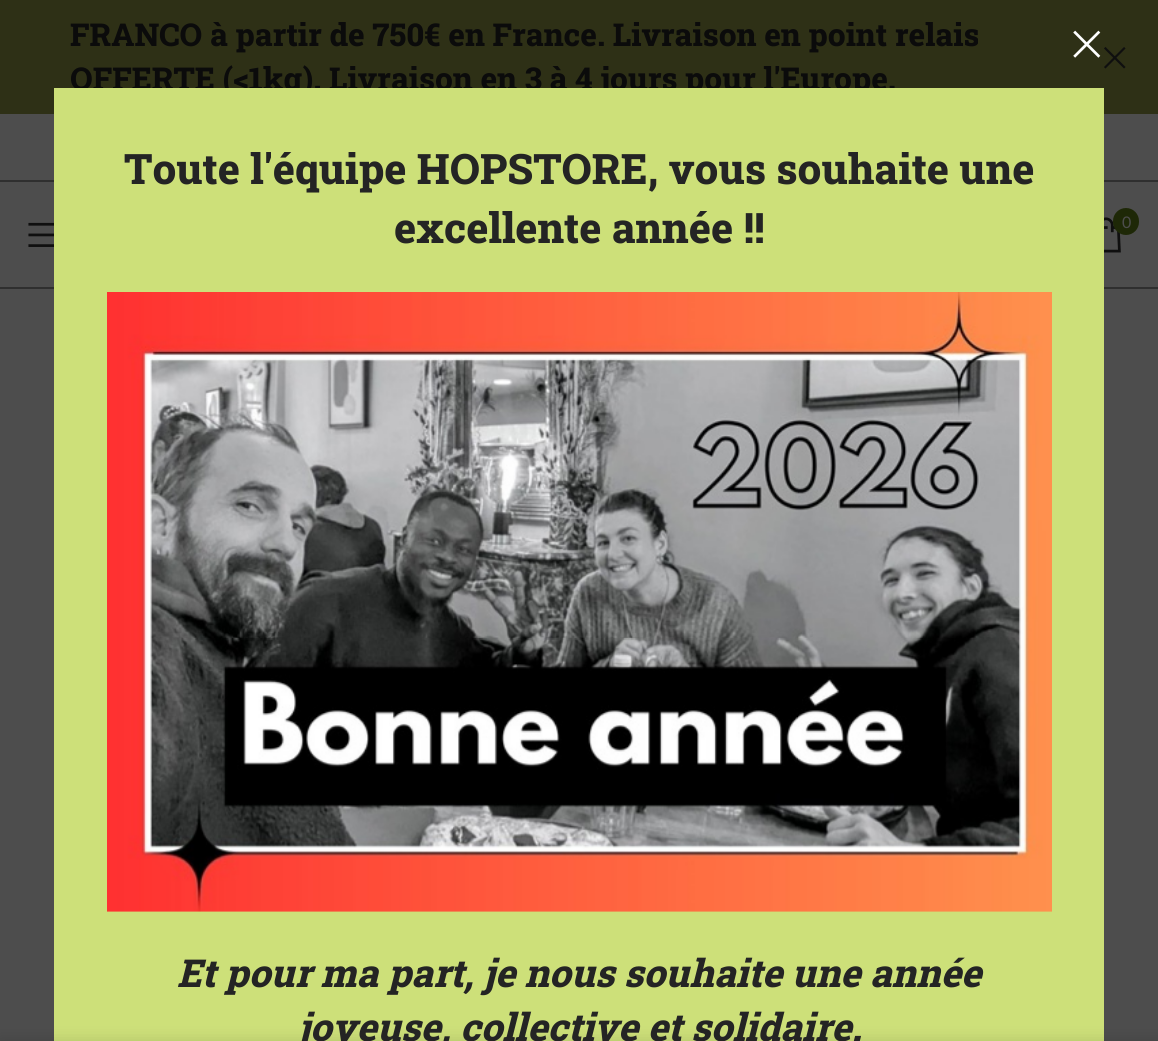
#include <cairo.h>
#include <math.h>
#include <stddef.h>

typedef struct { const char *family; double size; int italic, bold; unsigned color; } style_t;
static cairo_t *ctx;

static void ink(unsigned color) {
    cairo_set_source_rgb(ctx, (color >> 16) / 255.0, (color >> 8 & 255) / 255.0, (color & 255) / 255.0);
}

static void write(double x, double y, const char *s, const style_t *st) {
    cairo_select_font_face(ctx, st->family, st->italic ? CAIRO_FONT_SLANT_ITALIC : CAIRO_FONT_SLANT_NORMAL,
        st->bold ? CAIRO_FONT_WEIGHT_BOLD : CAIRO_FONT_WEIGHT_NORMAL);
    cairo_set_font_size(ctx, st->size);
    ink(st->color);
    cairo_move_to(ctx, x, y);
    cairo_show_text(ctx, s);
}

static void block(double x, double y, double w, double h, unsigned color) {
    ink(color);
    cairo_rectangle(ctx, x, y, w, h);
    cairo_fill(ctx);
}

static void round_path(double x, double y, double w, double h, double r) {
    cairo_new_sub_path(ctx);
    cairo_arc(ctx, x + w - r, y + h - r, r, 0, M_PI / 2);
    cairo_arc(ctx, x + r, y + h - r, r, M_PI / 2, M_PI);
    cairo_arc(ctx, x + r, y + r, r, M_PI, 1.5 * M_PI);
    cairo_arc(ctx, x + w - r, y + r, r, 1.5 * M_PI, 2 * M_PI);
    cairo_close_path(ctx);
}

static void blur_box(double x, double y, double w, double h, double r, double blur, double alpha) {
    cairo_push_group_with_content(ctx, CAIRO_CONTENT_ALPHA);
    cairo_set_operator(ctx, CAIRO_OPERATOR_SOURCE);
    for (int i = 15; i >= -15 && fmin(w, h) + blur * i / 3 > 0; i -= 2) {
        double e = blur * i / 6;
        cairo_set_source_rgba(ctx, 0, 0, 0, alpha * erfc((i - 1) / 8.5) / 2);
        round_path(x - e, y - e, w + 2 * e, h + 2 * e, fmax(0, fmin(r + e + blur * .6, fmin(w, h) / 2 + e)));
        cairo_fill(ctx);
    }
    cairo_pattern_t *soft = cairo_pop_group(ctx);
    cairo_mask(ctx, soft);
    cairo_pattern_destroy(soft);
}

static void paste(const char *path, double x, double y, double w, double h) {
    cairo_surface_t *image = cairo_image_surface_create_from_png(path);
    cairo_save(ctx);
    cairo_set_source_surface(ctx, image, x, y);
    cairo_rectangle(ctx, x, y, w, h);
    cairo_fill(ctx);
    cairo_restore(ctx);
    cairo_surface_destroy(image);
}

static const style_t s1 = {"Roboto Slab ExtraBold", 31.5, 0, 0, 0x0b0b0b};
static const style_t s2 = {"Roboto Slab ExtraBold", 42, 0, 0, 0x242424};
static const style_t s3 = {"Roboto Slab ExtraBold", 38.5, 1, 0, 0x242424};
static const style_t s4 = {"Lato", 16, 0, 0, 0x4d4d4d};

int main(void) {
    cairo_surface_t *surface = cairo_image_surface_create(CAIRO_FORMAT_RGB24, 1158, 1041);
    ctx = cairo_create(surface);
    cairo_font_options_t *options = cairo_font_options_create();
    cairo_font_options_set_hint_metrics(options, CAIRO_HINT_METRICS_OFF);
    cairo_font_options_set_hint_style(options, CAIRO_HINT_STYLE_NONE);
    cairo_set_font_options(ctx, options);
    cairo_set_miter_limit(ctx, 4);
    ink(0x4d4d4d);
    cairo_paint(ctx);
    block(0, 0, 1158, 114, 0x2e3016);
    write(70, 46, "FRANCO à partir de 750€ en France. Livraison en point relais", &s1);
    write(70, 90, "OFFERTE (<1kg). Livraison en 3 à 4 jours pour l'Europe.", &s1);
    paste("pic1.png", 1104, 47, 22, 22);
    block(0, 180, 1158, 2, 0x2f2f2f);
    block(0, 287, 1158, 2, 0x2f2f2f);
    block(54, 88, 1050, 953, 0xcde079);
    ink(0x000000);
    blur_box(0, 1041, 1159, 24, 0, 8, 0.14);
    paste("pic2.png", 1073, 30, 28, 28);
    write(124, 184, "Toute l'équipe HOPSTORE, vous souhaite une", &s2);
    write(394, 243, "excellente année !!", &s2);
    paste("pic3.png", 107, 292, 945, 620);
    write(177, 987, "Et pour ma part, je nous souhaite une année", &s3);
    write(298, 1041, "joyeuse, collective et solidaire.", &s3);
    paste("pic4.png", 28, 222, 26, 25);
    paste("pic5.png", 1104, 217, 17, 36);
    ink(0x1e2807);
    round_path(1113, 208, 26, 27, 13);
    cairo_fill(ctx);
    write(1122, 228, "0", &s4);
    cairo_surface_write_to_png(surface, "screenshot.png");
    cairo_font_options_destroy(options);
    cairo_destroy(ctx);
    cairo_surface_destroy(surface);
    return 0;
}
